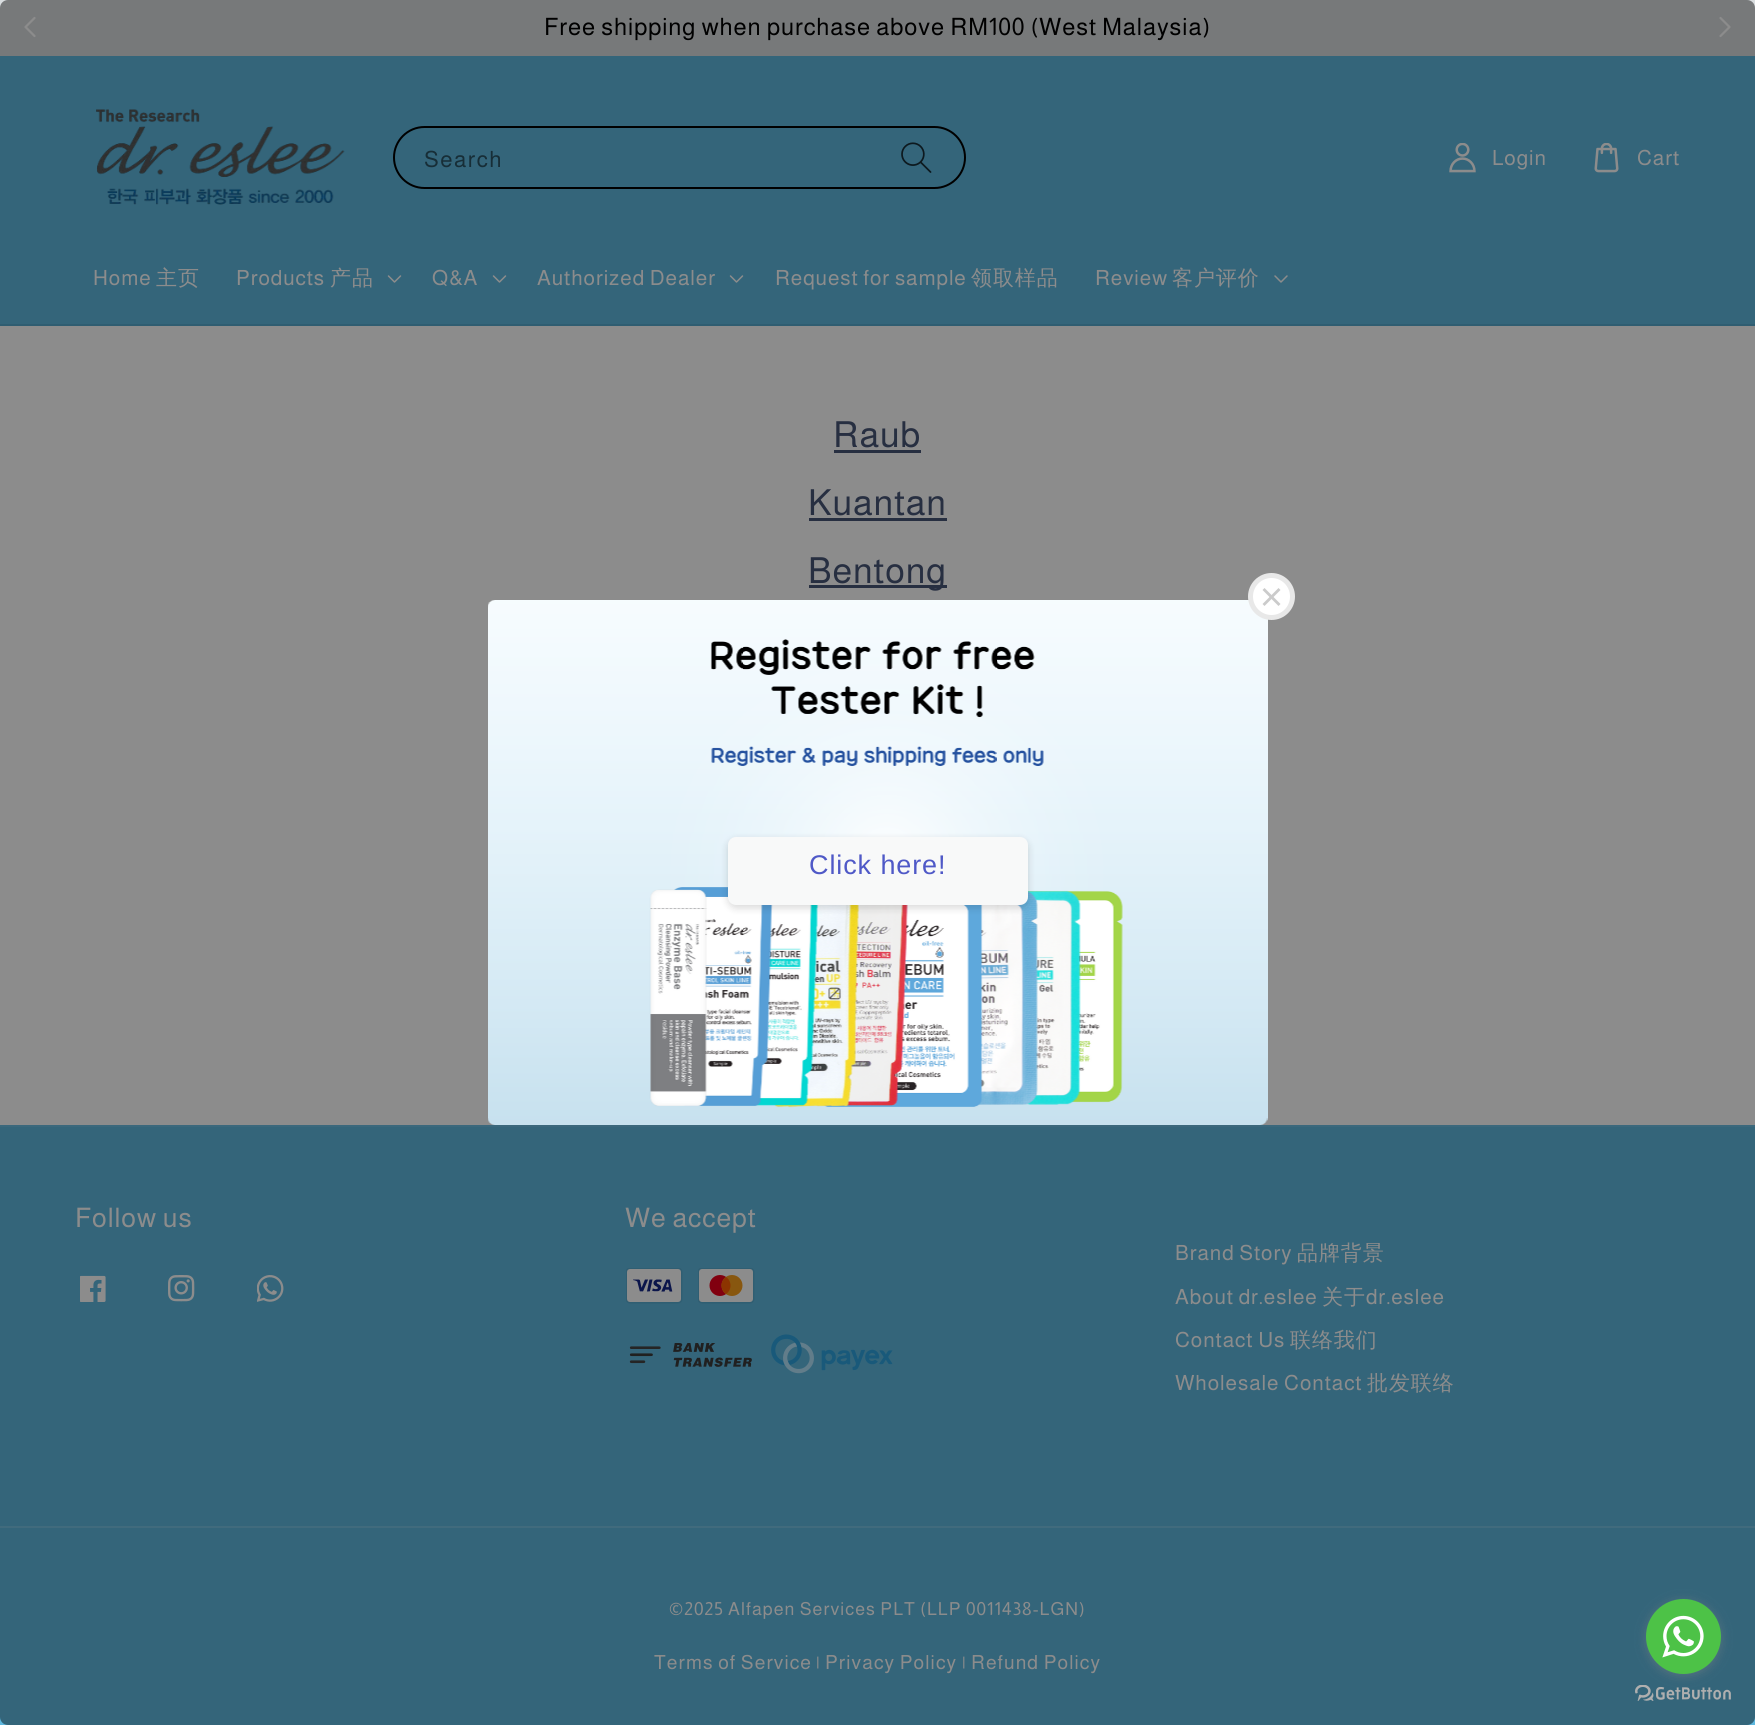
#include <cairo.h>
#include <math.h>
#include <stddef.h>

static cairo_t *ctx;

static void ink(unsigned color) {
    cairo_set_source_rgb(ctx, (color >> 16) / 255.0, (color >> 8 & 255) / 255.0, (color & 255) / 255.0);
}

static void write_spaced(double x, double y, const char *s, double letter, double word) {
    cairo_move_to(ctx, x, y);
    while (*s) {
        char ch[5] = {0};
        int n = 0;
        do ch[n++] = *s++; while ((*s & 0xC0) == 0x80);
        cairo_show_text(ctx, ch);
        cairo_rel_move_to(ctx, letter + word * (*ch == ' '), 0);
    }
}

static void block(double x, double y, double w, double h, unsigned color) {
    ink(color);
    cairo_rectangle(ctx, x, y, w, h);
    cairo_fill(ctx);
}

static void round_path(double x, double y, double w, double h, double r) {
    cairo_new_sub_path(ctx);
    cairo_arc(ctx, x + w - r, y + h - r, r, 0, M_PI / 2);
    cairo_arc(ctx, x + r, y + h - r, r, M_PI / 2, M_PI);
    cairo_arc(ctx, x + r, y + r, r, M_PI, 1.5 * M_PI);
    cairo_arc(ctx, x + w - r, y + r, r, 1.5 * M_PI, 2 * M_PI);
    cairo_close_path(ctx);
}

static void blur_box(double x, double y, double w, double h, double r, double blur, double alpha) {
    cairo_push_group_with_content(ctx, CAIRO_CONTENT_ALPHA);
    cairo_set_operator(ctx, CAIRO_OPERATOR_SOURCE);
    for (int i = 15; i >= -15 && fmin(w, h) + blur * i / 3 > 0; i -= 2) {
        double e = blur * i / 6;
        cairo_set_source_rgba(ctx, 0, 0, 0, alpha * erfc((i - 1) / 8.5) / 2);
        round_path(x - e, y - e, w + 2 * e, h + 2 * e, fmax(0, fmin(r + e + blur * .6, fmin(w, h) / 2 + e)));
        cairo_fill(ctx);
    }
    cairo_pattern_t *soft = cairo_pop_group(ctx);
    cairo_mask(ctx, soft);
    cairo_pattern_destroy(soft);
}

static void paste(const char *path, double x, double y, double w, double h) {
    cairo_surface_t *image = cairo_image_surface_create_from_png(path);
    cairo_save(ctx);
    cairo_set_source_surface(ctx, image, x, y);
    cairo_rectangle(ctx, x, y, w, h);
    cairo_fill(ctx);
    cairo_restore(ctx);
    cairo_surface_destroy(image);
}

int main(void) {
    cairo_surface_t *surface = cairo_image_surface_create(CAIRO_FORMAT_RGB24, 1755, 1725);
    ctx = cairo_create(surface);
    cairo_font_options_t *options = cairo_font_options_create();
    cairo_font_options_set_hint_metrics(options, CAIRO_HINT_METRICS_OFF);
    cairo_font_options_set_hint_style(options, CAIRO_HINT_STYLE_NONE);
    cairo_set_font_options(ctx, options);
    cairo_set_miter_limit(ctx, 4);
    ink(0xffffff);
    cairo_paint(ctx);
    block(0, 0, 1755, 56, 0xd9dddf);
    cairo_new_path(ctx);
    cairo_move_to(ctx, 34.5, 18);
    cairo_line_to(ctx, 25.5, 27);
    cairo_line_to(ctx, 34.5, 36);
    ink(0xffffff);
    cairo_set_line_width(ctx, 2.2);
    cairo_set_line_cap(ctx, CAIRO_LINE_CAP_ROUND);
    cairo_set_line_join(ctx, CAIRO_LINE_JOIN_ROUND);
    cairo_stroke(ctx);
    cairo_select_font_face(ctx, "Almarai", CAIRO_FONT_SLANT_NORMAL, CAIRO_FONT_WEIGHT_NORMAL);
    cairo_set_font_size(ctx, 24);
    ink(0x000000);
    write_spaced(544, 35, "Free shipping when purchase above RM100 (West Malaysia)", 0.9, 0);
    cairo_new_path(ctx);
    cairo_move_to(ctx, 1720.5, 18);
    cairo_line_to(ctx, 1729.5, 27);
    cairo_line_to(ctx, 1720.5, 36);
    ink(0xffffff);
    cairo_stroke(ctx);
    block(0, 56, 1755, 268, 0x5eb8df);
    block(0, 324, 1755, 2, 0x56a9cd);
    paste("pic1.png", 96, 109, 249, 96);
    round_path(394, 127, 571, 61, 30.5);
    ink(0x000000);
    cairo_set_line_width(ctx, 2);
    cairo_set_line_cap(ctx, CAIRO_LINE_CAP_BUTT);
    cairo_set_line_join(ctx, CAIRO_LINE_JOIN_MITER);
    cairo_stroke(ctx);
    cairo_set_font_size(ctx, 22.5);
    ink(0x2a5364);
    write_spaced(424, 167, "Search", 1.5, 0);
    paste("pic2.png", 901, 142, 31, 31);
    paste("pic3.png", 1449, 143, 27, 30);
    cairo_set_font_size(ctx, 21);
    ink(0xffffff);
    write_spaced(1492, 165, "Login", 0.9, 0);
    paste("pic4.png", 1594, 143, 25, 30);
    write_spaced(1637, 165, "Cart", 0.9, 0);
    write_spaced(93, 285, "Home", 0.9, 0);
    cairo_select_font_face(ctx, "WenQuanYi Zen Hei Medium", CAIRO_FONT_SLANT_NORMAL, CAIRO_FONT_WEIGHT_NORMAL);
    write_spaced(156, 285, "主页", 0.9, 0);
    cairo_select_font_face(ctx, "Almarai", CAIRO_FONT_SLANT_NORMAL, CAIRO_FONT_WEIGHT_NORMAL);
    write_spaced(236, 285, "Products", 0.9, 0);
    cairo_select_font_face(ctx, "WenQuanYi Zen Hei Medium", CAIRO_FONT_SLANT_NORMAL, CAIRO_FONT_WEIGHT_NORMAL);
    write_spaced(330, 285, "产品", 0.9, 0);
    paste("pic5.png", 387, 275, 15, 8);
    cairo_select_font_face(ctx, "Almarai", CAIRO_FONT_SLANT_NORMAL, CAIRO_FONT_WEIGHT_NORMAL);
    write_spaced(432, 285, "Q&A", 0.9, 0);
    paste("pic5.png", 492, 275, 15, 8);
    write_spaced(537, 285, "Authorized Dealer", 0.9, 0);
    paste("pic5.png", 729, 275, 15, 8);
    write_spaced(775, 285, "Request for sample", 0.9, 0);
    cairo_select_font_face(ctx, "WenQuanYi Zen Hei Medium", CAIRO_FONT_SLANT_NORMAL, CAIRO_FONT_WEIGHT_NORMAL);
    write_spaced(971, 285, "领取样品", 0.9, 0);
    cairo_select_font_face(ctx, "Almarai", CAIRO_FONT_SLANT_NORMAL, CAIRO_FONT_WEIGHT_NORMAL);
    write_spaced(1095, 285, "Review", 0.9, 0);
    cairo_select_font_face(ctx, "WenQuanYi Zen Hei Medium", CAIRO_FONT_SLANT_NORMAL, CAIRO_FONT_WEIGHT_NORMAL);
    write_spaced(1172, 285, "客户评价", 0.9, 0);
    paste("pic6.png", 1274, 275, 14, 8);
    cairo_select_font_face(ctx, "Almarai", CAIRO_FONT_SLANT_NORMAL, CAIRO_FONT_WEIGHT_NORMAL);
    cairo_set_font_size(ctx, 36);
    ink(0x475577);
    write_spaced(833, 447, "Raub", 0.9, 0);
    block(834, 450, 87, 3, 0x475577);
    write_spaced(808, 515, "Kuantan", 0.9, 0);
    block(809, 518, 138, 3, 0x475577);
    block(809, 585, 138, 3, 0x475577);
    write_spaced(808, 583, "Bentong", 0.9, 0);
    block(0, 1127, 1755, 598, 0x5eb8df);
    block(0, 1125, 1755, 2, 0x6bbee2);
    cairo_set_font_size(ctx, 27);
    ink(0xffffff);
    write_spaced(75, 1227, "Follow us", 0.9, 0);
    paste("pic8.png", 80, 1275, 26, 27);
    paste("pic9.png", 168, 1275, 27, 27);
    paste("pic10.png", 257, 1275, 27, 27);
    write_spaced(625, 1227, "We accept", 0.9, 0);
    paste("pic11.png", 626, 1268, 57, 36);
    paste("pic12.png", 698, 1268, 57, 36);
    paste("pic13.png", 629, 1343, 123, 24);
    paste("pic14.png", 771, 1334, 122, 40);
    cairo_set_font_size(ctx, 21);
    write_spaced(1175, 1260, "Brand Story", 0.9, 0);
    cairo_select_font_face(ctx, "WenQuanYi Zen Hei Medium", CAIRO_FONT_SLANT_NORMAL, CAIRO_FONT_WEIGHT_NORMAL);
    write_spaced(1297, 1260, "品牌背景", 0.9, 0);
    cairo_select_font_face(ctx, "Almarai", CAIRO_FONT_SLANT_NORMAL, CAIRO_FONT_WEIGHT_NORMAL);
    write_spaced(1175, 1304, "About dr.eslee", 0.9, 0);
    cairo_select_font_face(ctx, "WenQuanYi Zen Hei Medium", CAIRO_FONT_SLANT_NORMAL, CAIRO_FONT_WEIGHT_NORMAL);
    write_spaced(1322, 1304, "关于", 0.9, 0);
    cairo_select_font_face(ctx, "Almarai", CAIRO_FONT_SLANT_NORMAL, CAIRO_FONT_WEIGHT_NORMAL);
    write_spaced(1366, 1304, "dr.eslee", 0.9, 0);
    write_spaced(1175, 1347, "Contact Us", 0.9, 0);
    cairo_select_font_face(ctx, "WenQuanYi Zen Hei Medium", CAIRO_FONT_SLANT_NORMAL, CAIRO_FONT_WEIGHT_NORMAL);
    write_spaced(1290, 1347, "联络我们", 0.9, 0);
    cairo_select_font_face(ctx, "Almarai", CAIRO_FONT_SLANT_NORMAL, CAIRO_FONT_WEIGHT_NORMAL);
    write_spaced(1175, 1390, "Wholesale Contact", 0.9, 0);
    cairo_select_font_face(ctx, "WenQuanYi Zen Hei Medium", CAIRO_FONT_SLANT_NORMAL, CAIRO_FONT_WEIGHT_NORMAL);
    write_spaced(1367, 1390, "批发联络", 0.9, 0);
    block(0, 1526, 1755, 2, 0x76c3e4);
    cairo_select_font_face(ctx, "Almarai", CAIRO_FONT_SLANT_NORMAL, CAIRO_FONT_WEIGHT_NORMAL);
    cairo_set_font_size(ctx, 18);
    ink(0xffffff);
    write_spaced(669, 1615, "©2025 Alfapen Services PLT (LLP 0011438-LGN)", 1.05, 0);
    cairo_set_font_size(ctx, 19.5);
    write_spaced(654, 1669, "Terms of Service", 1.05, 0);
    cairo_set_font_size(ctx, 18);
    write_spaced(816, 1669, "|", 1.05, 0);
    cairo_set_font_size(ctx, 19.5);
    write_spaced(825, 1669, "Privacy Policy", 1.05, 0);
    cairo_set_font_size(ctx, 18);
    write_spaced(962, 1669, "|", 1.05, 0);
    cairo_set_font_size(ctx, 19.5);
    write_spaced(971, 1669, "Refund Policy", 1.05, 0);
    cairo_set_source_rgba(ctx, 0, 0, 0, 0.45);
    round_path(0, 0, 1755, 1725, 8);
    cairo_fill(ctx);
    paste("pic7.png", 488, 600, 780, 525);
    ink(0xffffff);
    cairo_arc(ctx, 1271.5, 596.5, 21, 0, 2 * M_PI);
    cairo_fill_preserve(ctx);
    ink(0xe8e8e8);
    cairo_set_line_width(ctx, 5);
    cairo_stroke(ctx);
    ink(0xcbcbcb);
    cairo_new_path(ctx);
    cairo_move_to(ctx, 1278.5, 588);
    cairo_line_to(ctx, 1280.5, 590);
    cairo_line_to(ctx, 1264.5, 606);
    cairo_line_to(ctx, 1262.5, 604);
    cairo_close_path(ctx);
    cairo_fill(ctx);
    cairo_new_path(ctx);
    cairo_move_to(ctx, 1262.5, 590);
    cairo_line_to(ctx, 1264.5, 588);
    cairo_line_to(ctx, 1280.5, 604);
    cairo_line_to(ctx, 1278.5, 606);
    cairo_close_path(ctx);
    cairo_fill(ctx);
    ink(0x000000);
    blur_box(728, 840, 300, 68, 8, 4, 0.15);
    ink(0xf8f9f9);
    round_path(728, 837, 300, 68, 8);
    cairo_fill(ctx);
    cairo_select_font_face(ctx, "Liberation Sans", CAIRO_FONT_SLANT_NORMAL, CAIRO_FONT_WEIGHT_NORMAL);
    cairo_set_font_size(ctx, 27);
    ink(0x4f59c7);
    write_spaced(809, 874, "Click here!", 0.9, 0);
    paste("pic16.png", 1635, 1685, 96, 16);
    ink(0x888888);
    blur_box(1646, 1601, 75, 75, 37.5, 5, 0.4);
    ink(0x4dc247);
    cairo_arc(ctx, 1683.5, 1636.5, 37.5, 0, 2 * M_PI);
    cairo_fill(ctx);
    paste("pic15.png", 1662, 1615, 42, 43);
    cairo_surface_write_to_png(surface, "screenshot.png");
    cairo_font_options_destroy(options);
    cairo_destroy(ctx);
    cairo_surface_destroy(surface);
    return 0;
}
